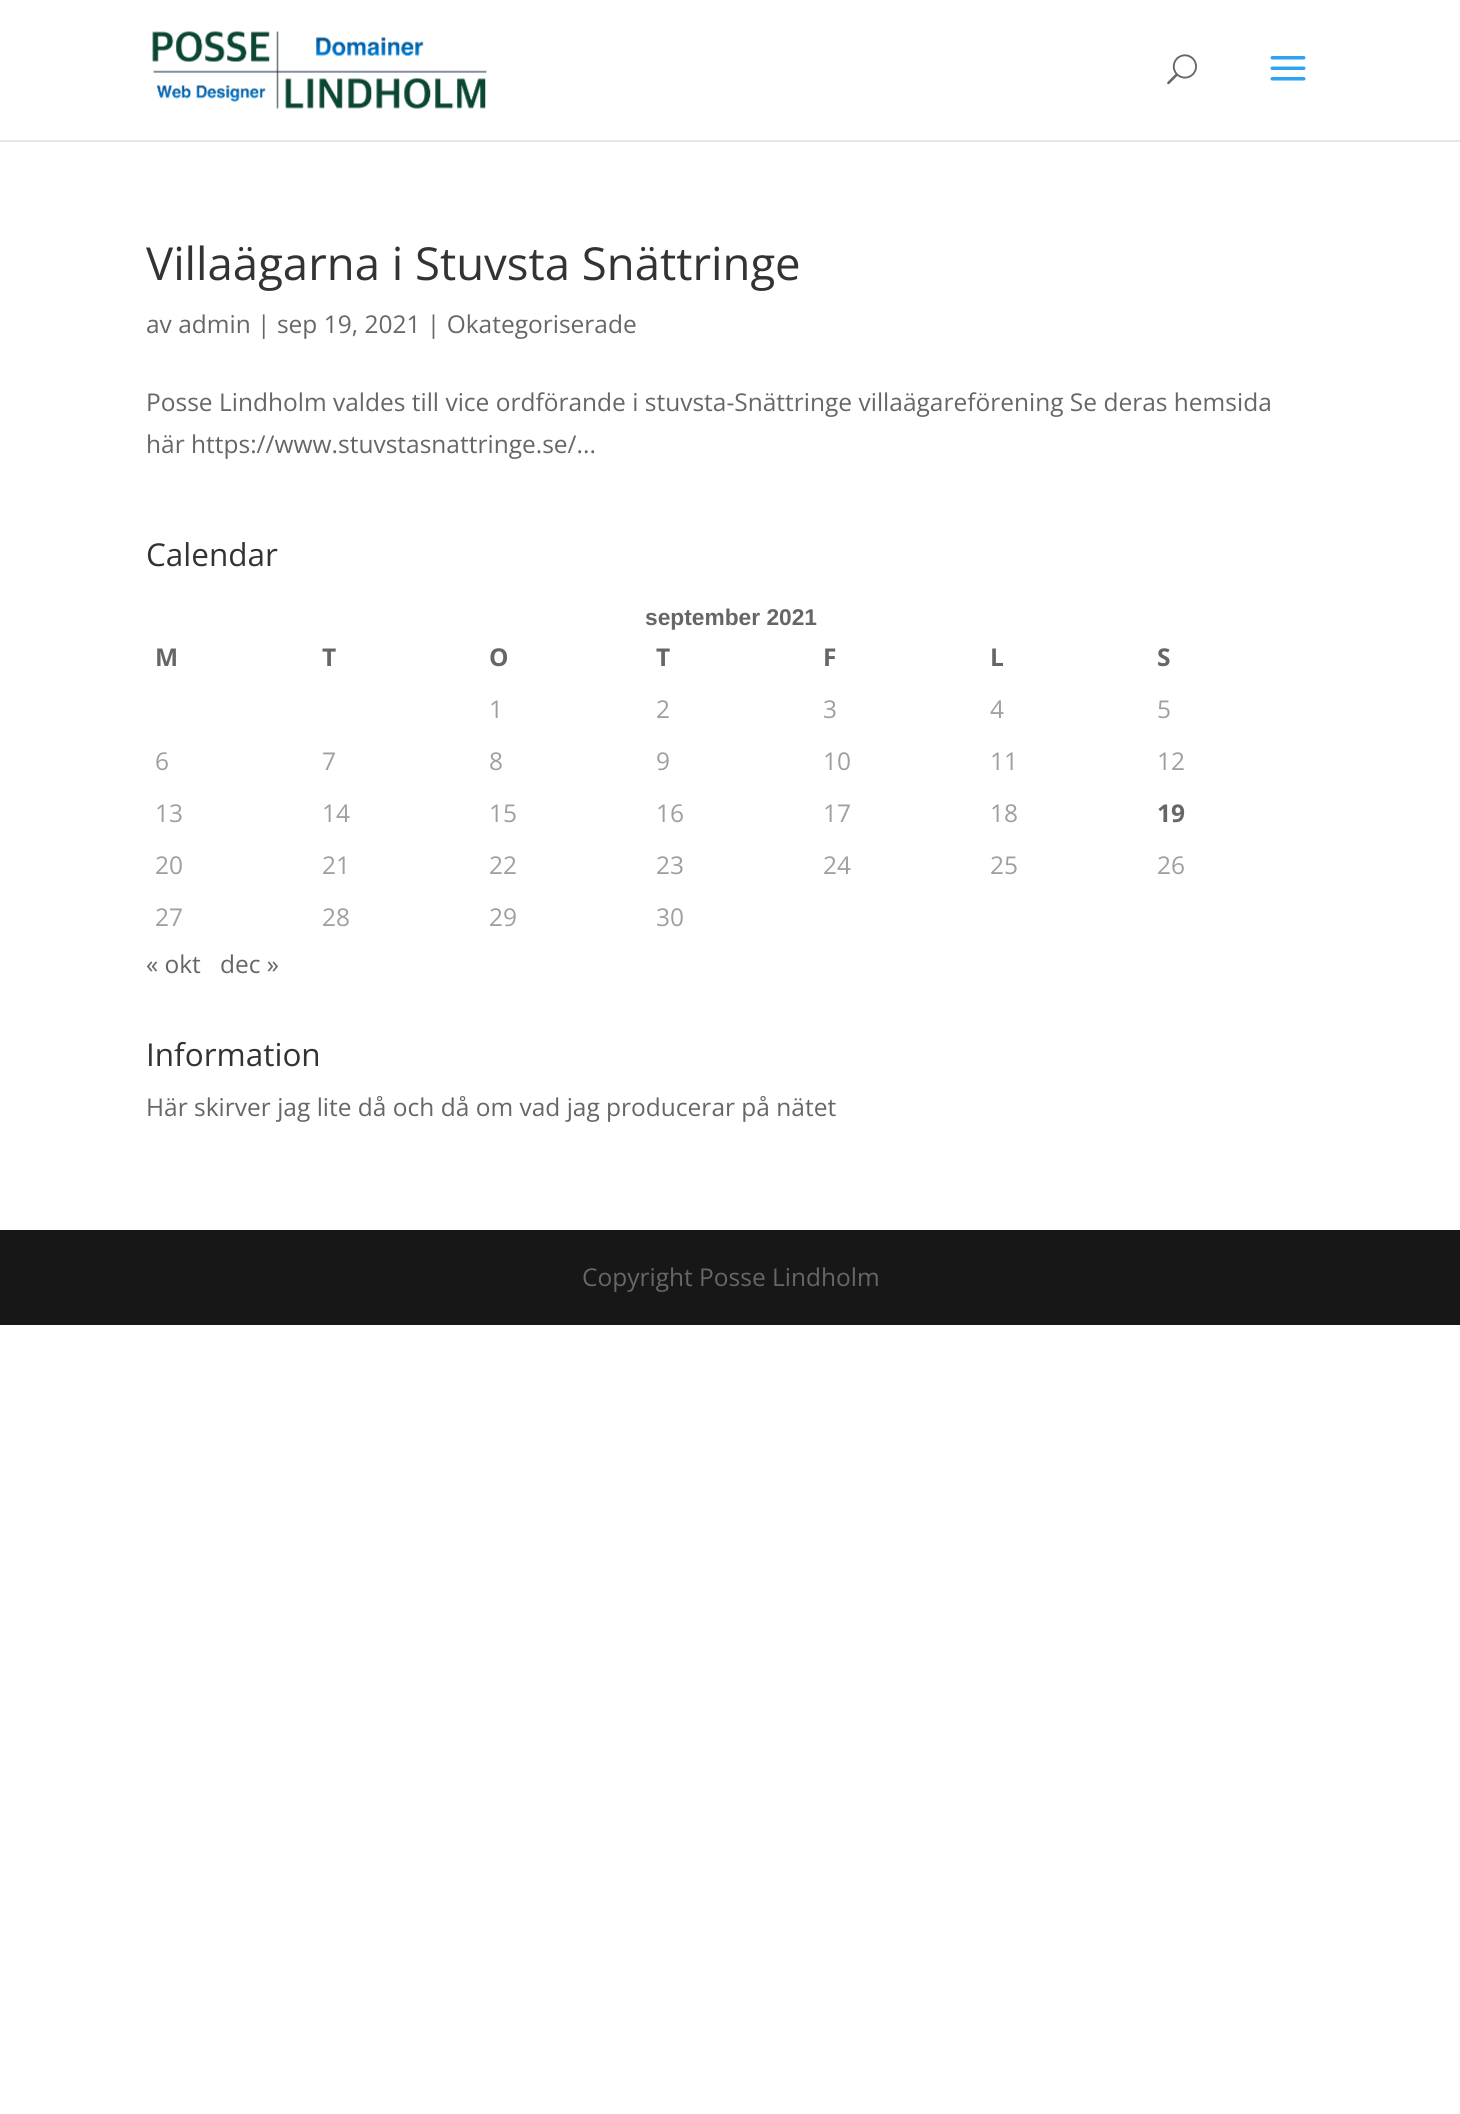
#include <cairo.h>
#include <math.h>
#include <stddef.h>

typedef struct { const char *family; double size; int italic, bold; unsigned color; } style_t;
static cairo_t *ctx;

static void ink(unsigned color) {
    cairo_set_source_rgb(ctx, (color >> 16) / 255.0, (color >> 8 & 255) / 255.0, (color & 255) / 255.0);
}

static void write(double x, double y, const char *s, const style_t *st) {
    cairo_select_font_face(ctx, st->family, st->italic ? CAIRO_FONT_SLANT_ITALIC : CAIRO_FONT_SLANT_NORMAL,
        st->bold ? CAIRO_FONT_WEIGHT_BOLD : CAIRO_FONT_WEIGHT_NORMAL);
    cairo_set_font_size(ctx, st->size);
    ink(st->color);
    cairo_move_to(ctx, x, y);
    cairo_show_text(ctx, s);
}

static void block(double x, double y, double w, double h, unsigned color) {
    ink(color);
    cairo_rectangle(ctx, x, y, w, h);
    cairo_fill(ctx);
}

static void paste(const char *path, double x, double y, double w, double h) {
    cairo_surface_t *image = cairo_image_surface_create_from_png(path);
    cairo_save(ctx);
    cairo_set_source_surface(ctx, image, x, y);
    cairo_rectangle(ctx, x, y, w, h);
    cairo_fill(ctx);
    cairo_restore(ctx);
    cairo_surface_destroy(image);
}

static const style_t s1 = {"Open Sans", 45.5, 0, 0, 0x333333};
static const style_t s2 = {"Open Sans", 24.5, 0, 0, 0x666666};
static const style_t s3 = {"Open Sans", 31.5, 0, 0, 0x333333};
static const style_t s4 = {"Liberation Sans", 22.75, 0, 1, 0x666666};
static const style_t s5 = {"Open Sans", 24.5, 0, 1, 0x666666};
static const style_t s6 = {"Open Sans", 24.5, 0, 0, 0x9f9f9f};

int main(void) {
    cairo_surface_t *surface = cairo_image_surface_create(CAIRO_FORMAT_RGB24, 1460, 2114);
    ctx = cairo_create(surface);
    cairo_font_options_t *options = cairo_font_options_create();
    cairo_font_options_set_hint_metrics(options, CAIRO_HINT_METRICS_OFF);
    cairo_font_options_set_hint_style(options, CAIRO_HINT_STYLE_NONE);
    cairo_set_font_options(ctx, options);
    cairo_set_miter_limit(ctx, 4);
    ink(0xffffff);
    cairo_paint(ctx);
    block(0, 140, 1460, 2, 0xe6e6e6);
    paste("pic1.png", 152, 31, 335, 78);
    paste("pic2.png", 1167, 54, 30, 31);
    paste("pic3.png", 1270, 56, 36, 25);
    write(146, 280, "Villaägarna i Stuvsta Snättringe", &s1);
    write(146, 333, "av admin | sep 19, 2021 | Okategoriserade", &s2);
    write(146, 411, "Posse Lindholm valdes till vice ordförande i stuvsta-Snättringe villaägareförening Se deras hemsida", &s2);
    write(146, 453, "här https://www.stuvstasnattringe.se/...", &s2);
    write(146, 566, "Calendar", &s3);
    write(645, 625, "september 2021", &s4);
    write(155, 666, "M", &s5);
    write(322, 666, "T", &s5);
    write(489, 666, "O", &s5);
    write(656, 666, "T", &s5);
    write(823, 666, "F", &s5);
    write(990, 666, "L", &s5);
    write(1157, 666, "S", &s5);
    write(489, 718, "1", &s6);
    write(656, 718, "2", &s6);
    write(823, 718, "3", &s6);
    write(990, 718, "4", &s6);
    write(1157, 718, "5", &s6);
    write(155, 770, "6", &s6);
    write(322, 770, "7", &s6);
    write(489, 770, "8", &s6);
    write(656, 770, "9", &s6);
    write(823, 770, "10", &s6);
    write(990, 770, "11", &s6);
    write(1157, 770, "12", &s6);
    write(155, 822, "13", &s6);
    write(322, 822, "14", &s6);
    write(489, 822, "15", &s6);
    write(656, 822, "16", &s6);
    write(823, 822, "17", &s6);
    write(990, 822, "18", &s6);
    write(1157, 822, "19", &s5);
    write(155, 874, "20", &s6);
    write(322, 874, "21", &s6);
    write(489, 874, "22", &s6);
    write(656, 874, "23", &s6);
    write(823, 874, "24", &s6);
    write(990, 874, "25", &s6);
    write(1157, 874, "26", &s6);
    write(155, 926, "27", &s6);
    write(322, 926, "28", &s6);
    write(489, 926, "29", &s6);
    write(656, 926, "30", &s6);
    write(146, 973, "« okt", &s2);
    write(220, 973, "dec »", &s2);
    write(146, 1066, "Information", &s3);
    write(146, 1116, "Här skirver jag lite då och då om vad jag producerar på nätet", &s2);
    block(0, 1230, 1460, 95, 0x171717);
    write(582, 1286, "Copyright Posse Lindholm", &s2);
    cairo_surface_write_to_png(surface, "screenshot.png");
    cairo_font_options_destroy(options);
    cairo_destroy(ctx);
    cairo_surface_destroy(surface);
    return 0;
}
